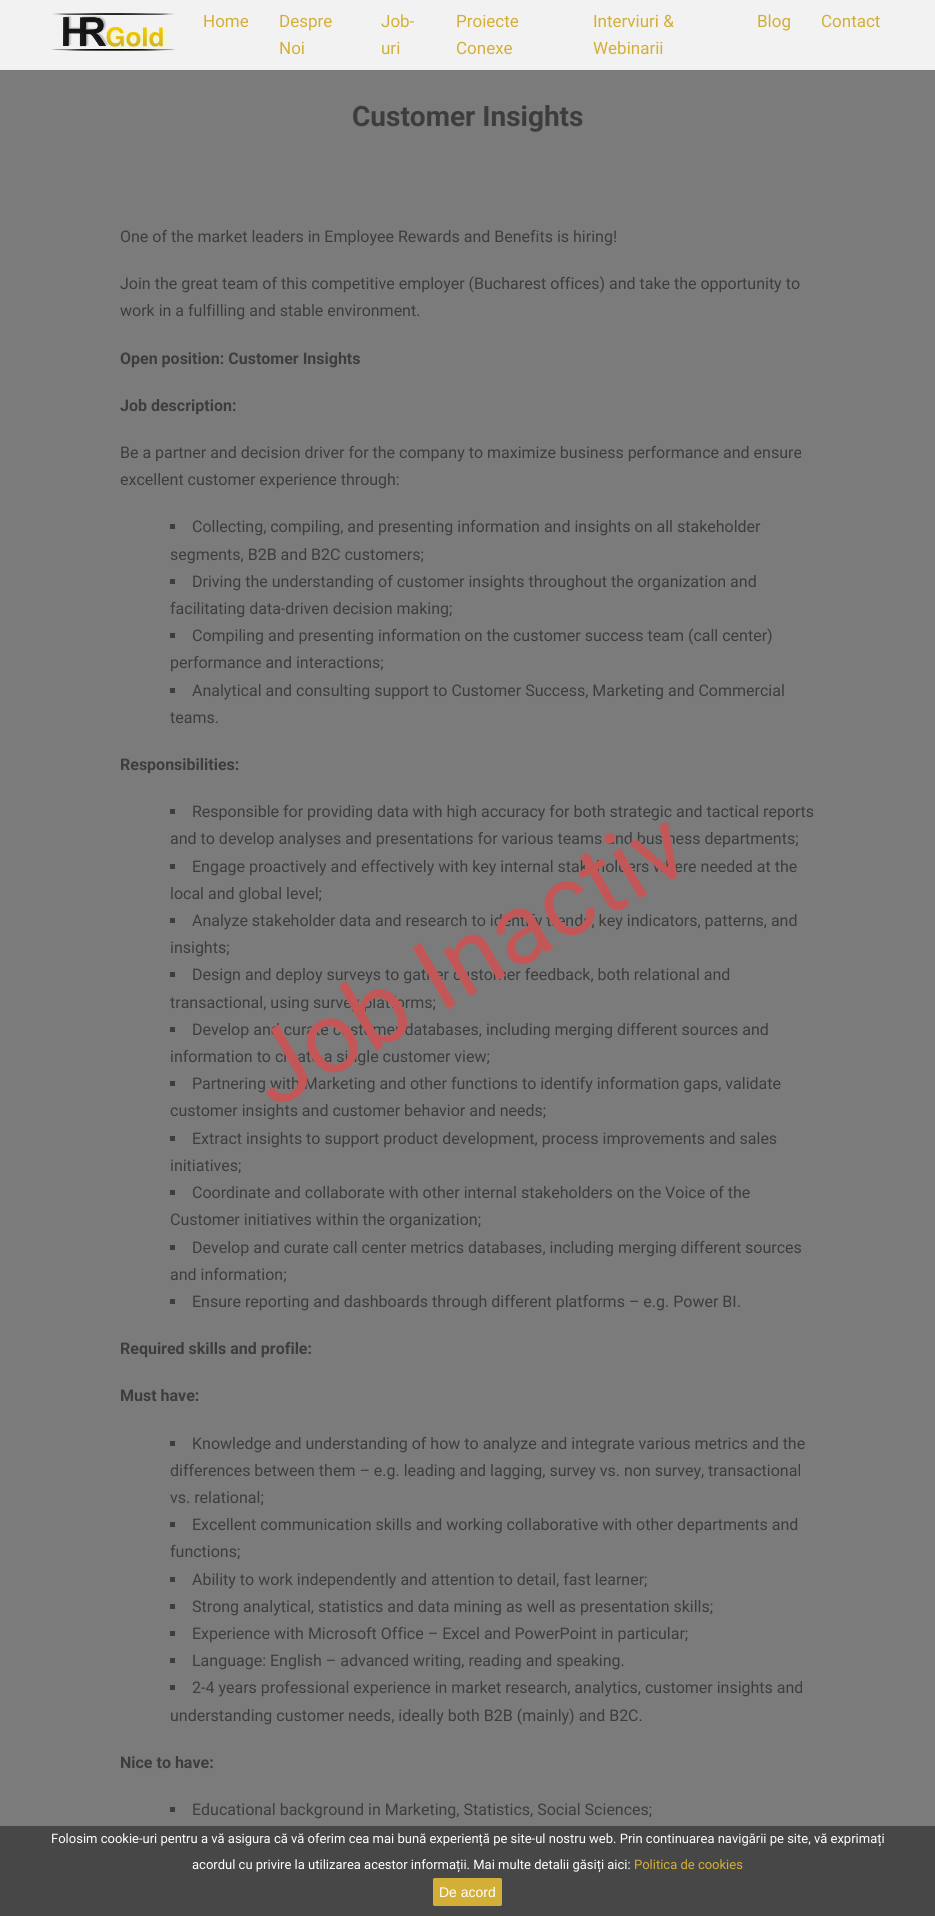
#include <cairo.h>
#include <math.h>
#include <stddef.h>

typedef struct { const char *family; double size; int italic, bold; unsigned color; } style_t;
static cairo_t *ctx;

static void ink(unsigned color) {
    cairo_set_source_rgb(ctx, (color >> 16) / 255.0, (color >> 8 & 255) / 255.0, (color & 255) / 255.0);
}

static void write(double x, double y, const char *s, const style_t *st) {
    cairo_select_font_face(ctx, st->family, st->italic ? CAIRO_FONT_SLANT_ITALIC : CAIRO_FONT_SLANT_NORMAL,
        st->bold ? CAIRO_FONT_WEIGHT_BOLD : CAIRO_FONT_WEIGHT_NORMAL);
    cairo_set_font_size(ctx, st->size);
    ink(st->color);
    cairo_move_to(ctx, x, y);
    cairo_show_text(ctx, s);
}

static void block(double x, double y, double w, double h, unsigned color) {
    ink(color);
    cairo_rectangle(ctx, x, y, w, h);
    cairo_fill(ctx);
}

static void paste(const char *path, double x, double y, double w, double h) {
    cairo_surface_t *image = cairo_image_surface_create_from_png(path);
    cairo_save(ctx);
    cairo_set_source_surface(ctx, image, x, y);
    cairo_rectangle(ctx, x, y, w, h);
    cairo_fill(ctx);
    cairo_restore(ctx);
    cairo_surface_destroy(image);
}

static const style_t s1 = {"Roboto", 17, 0, 0, 0xd4af37};
static const style_t s2 = {"Roboto", 28, 0, 1, 0x3d3d3d};
static const style_t s3 = {"Roboto", 16, 0, 0, 0x3d3d3d};
static const style_t s4 = {"Roboto", 16, 0, 1, 0x3d3d3d};
static const style_t s5 = {"Roboto", 100, 0, 0, 0xc35757};
static const style_t s6 = {"Roboto", 13, 0, 0, 0xffffff};
static const style_t s7 = {"Roboto", 13, 0, 0, 0xd4af37};
static const style_t s8 = {"Liberation Sans", 14, 0, 0, 0xffffff};

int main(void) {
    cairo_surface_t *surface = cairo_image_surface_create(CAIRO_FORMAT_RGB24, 935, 1916);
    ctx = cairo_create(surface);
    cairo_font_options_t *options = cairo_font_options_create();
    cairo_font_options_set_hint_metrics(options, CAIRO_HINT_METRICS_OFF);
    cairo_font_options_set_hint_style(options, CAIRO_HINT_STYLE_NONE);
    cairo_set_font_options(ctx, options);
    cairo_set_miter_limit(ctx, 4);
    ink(0x7b7b7b);
    cairo_paint(ctx);
    block(0, 0, 935, 70, 0xf2f2f2);
    paste("pic1.png", 52, 13, 123, 38);
    write(203, 27, "Home", &s1);
    write(279, 27, "Despre", &s1);
    write(279, 54, "Noi", &s1);
    write(381, 27, "Job-", &s1);
    write(381, 54, "uri", &s1);
    write(456, 27, "Proiecte", &s1);
    write(456, 54, "Conexe", &s1);
    write(593, 27, "Interviuri &", &s1);
    write(593, 54, "Webinarii", &s1);
    write(757, 27, "Blog", &s1);
    write(821, 27, "Contact", &s1);
    write(352, 126, "Customer Insights", &s2);
    write(120, 242, "One of the market leaders in Employee Rewards and Benefits is hiring!", &s3);
    write(120, 289, "Join the great team of this competitive employer (Bucharest offices) and take the opportunity to", &s3);
    write(120, 316, "work in a fulfilling and stable environment.", &s3);
    write(120, 364, "Open position: Customer Insights", &s4);
    write(120, 411, "Job description:", &s4);
    write(120, 458, "Be a partner and decision driver for the company to maximize business performance and ensure", &s3);
    write(120, 485, "excellent customer experience through:", &s3);
    block(170, 524, 5, 5, 0x3d3d3d);
    write(192, 532, "Collecting, compiling, and presenting information and insights on all stakeholder", &s3);
    write(170, 560, "segments, B2B and B2C customers;", &s3);
    block(170, 579, 5, 5, 0x3d3d3d);
    write(192, 587, "Driving the understanding of customer insights throughout the organization and", &s3);
    write(170, 614, "facilitating data-driven decision making;", &s3);
    block(170, 633, 5, 5, 0x3d3d3d);
    write(192, 641, "Compiling and presenting information on the customer success team (call center)", &s3);
    write(170, 668, "performance and interactions;", &s3);
    block(170, 688, 5, 5, 0x3d3d3d);
    write(192, 696, "Analytical and consulting support to Customer Success, Marketing and Commercial", &s3);
    write(170, 723, "teams.", &s3);
    write(120, 770, "Responsibilities:", &s4);
    block(170, 809, 5, 5, 0x3d3d3d);
    write(192, 817, "Responsible for providing data with high accuracy for both strategic and tactical reports", &s3);
    write(170, 844, "and to develop analyses and presentations for various teams and business departments;", &s3);
    block(170, 864, 5, 5, 0x3d3d3d);
    write(192, 872, "Engage proactively and effectively with key internal stakeholders where needed at the", &s3);
    write(170, 899, "local and global level;", &s3);
    block(170, 918, 5, 5, 0x3d3d3d);
    write(192, 926, "Analyze stakeholder data and research to identify trends, key indicators, patterns, and", &s3);
    write(170, 953, "insights;", &s3);
    block(170, 972, 5, 5, 0x3d3d3d);
    write(192, 980, "Design and deploy surveys to gather customer feedback, both relational and", &s3);
    write(170, 1008, "transactional, using survey platforms;", &s3);
    block(170, 1027, 5, 5, 0x3d3d3d);
    write(192, 1035, "Develop and curate customer databases, including merging different sources and", &s3);
    write(170, 1062, "information to create a single customer view;", &s3);
    block(170, 1081, 5, 5, 0x3d3d3d);
    write(192, 1089, "Partnering with Marketing and other functions to identify information gaps, validate", &s3);
    write(170, 1116, "customer insights and customer behavior and needs;", &s3);
    block(170, 1136, 5, 5, 0x3d3d3d);
    write(192, 1144, "Extract insights to support product development, process improvements and sales", &s3);
    write(170, 1171, "initiatives;", &s3);
    block(170, 1190, 5, 5, 0x3d3d3d);
    write(192, 1198, "Coordinate and collaborate with other internal stakeholders on the Voice of the", &s3);
    write(170, 1225, "Customer initiatives within the organization;", &s3);
    block(170, 1245, 5, 5, 0x3d3d3d);
    write(192, 1253, "Develop and curate call center metrics databases, including merging different sources", &s3);
    write(170, 1280, "and information;", &s3);
    block(170, 1299, 5, 5, 0x3d3d3d);
    write(192, 1307, "Ensure reporting and dashboards through different platforms – e.g. Power BI.", &s3);
    write(120, 1354, "Required skills and profile:", &s4);
    write(120, 1401, "Must have:", &s4);
    block(170, 1441, 5, 5, 0x3d3d3d);
    write(192, 1449, "Knowledge and understanding of how to analyze and integrate various metrics and the", &s3);
    write(170, 1476, "differences between them – e.g. leading and lagging, survey vs. non survey, transactional", &s3);
    write(170, 1503, "vs. relational;", &s3);
    block(170, 1522, 5, 5, 0x3d3d3d);
    write(192, 1530, "Excellent communication skills and working collaborative with other departments and", &s3);
    write(170, 1557, "functions;", &s3);
    block(170, 1577, 5, 5, 0x3d3d3d);
    write(192, 1585, "Ability to work independently and attention to detail, fast learner;", &s3);
    block(170, 1604, 5, 5, 0x3d3d3d);
    write(192, 1612, "Strong analytical, statistics and data mining as well as presentation skills;", &s3);
    block(170, 1631, 5, 5, 0x3d3d3d);
    write(192, 1639, "Experience with Microsoft Office – Excel and PowerPoint in particular;", &s3);
    block(170, 1658, 5, 5, 0x3d3d3d);
    write(192, 1666, "Language: English – advanced writing, reading and speaking.", &s3);
    block(170, 1685, 5, 5, 0x3d3d3d);
    write(192, 1693, "2-4 years professional experience in market research, analytics, customer insights and", &s3);
    write(170, 1721, "understanding customer needs, ideally both B2B (mainly) and B2C.", &s3);
    write(120, 1768, "Nice to have:", &s4);
    block(170, 1807, 5, 5, 0x3d3d3d);
    write(192, 1815, "Educational background in Marketing, Statistics, Social Sciences;", &s3);
    cairo_save(ctx);
    cairo_translate(ctx, 273, 1110);
    cairo_rotate(ctx, -30 * M_PI / 180);
    write(0, 0, "Job Inactiv", &s5);
    cairo_restore(ctx);
    block(0, 1826, 935, 90, 0x474747);
    write(51, 1843, "Folosim cookie-uri pentru a vă asigura că vă oferim cea mai bună experiență pe site-ul nostru web. Prin continuarea navigării pe site, vă exprimați", &s6);
    write(192, 1869, "acordul cu privire la utilizarea acestor informații. Mai multe detalii găsiți aici:", &s6);
    write(634, 1869, "Politica de cookies", &s7);
    cairo_new_path(ctx);
    cairo_move_to(ctx, 436, 1878);
    cairo_line_to(ctx, 499, 1878);
    cairo_curve_to(ctx, 500, 1878, 502, 1879, 502, 1879);
    cairo_line_to(ctx, 502, 1905);
    cairo_curve_to(ctx, 502, 1905, 500, 1906, 499, 1906);
    cairo_line_to(ctx, 436, 1906);
    cairo_curve_to(ctx, 435, 1906, 433, 1905, 433, 1905);
    cairo_line_to(ctx, 433, 1879);
    cairo_curve_to(ctx, 433, 1879, 435, 1878, 436, 1878);
    cairo_close_path(ctx);
    cairo_fill(ctx);
    cairo_new_path(ctx);
    cairo_move_to(ctx, 436.5, 1878.5);
    cairo_line_to(ctx, 498.5, 1878.5);
    cairo_curve_to(ctx, 500, 1878.5, 501.5, 1879, 501.5, 1879.5);
    cairo_line_to(ctx, 501.5, 1904.5);
    cairo_curve_to(ctx, 501.5, 1905, 500, 1905.5, 498.5, 1905.5);
    cairo_line_to(ctx, 436.5, 1905.5);
    cairo_curve_to(ctx, 435, 1905.5, 433.5, 1905, 433.5, 1904.5);
    cairo_line_to(ctx, 433.5, 1879.5);
    cairo_curve_to(ctx, 433.5, 1879, 435, 1878.5, 436.5, 1878.5);
    cairo_close_path(ctx);
    cairo_set_line_width(ctx, 1);
    cairo_stroke(ctx);
    write(439, 1897, "De acord", &s8);
    cairo_surface_write_to_png(surface, "screenshot.png");
    cairo_font_options_destroy(options);
    cairo_destroy(ctx);
    cairo_surface_destroy(surface);
    return 0;
}
